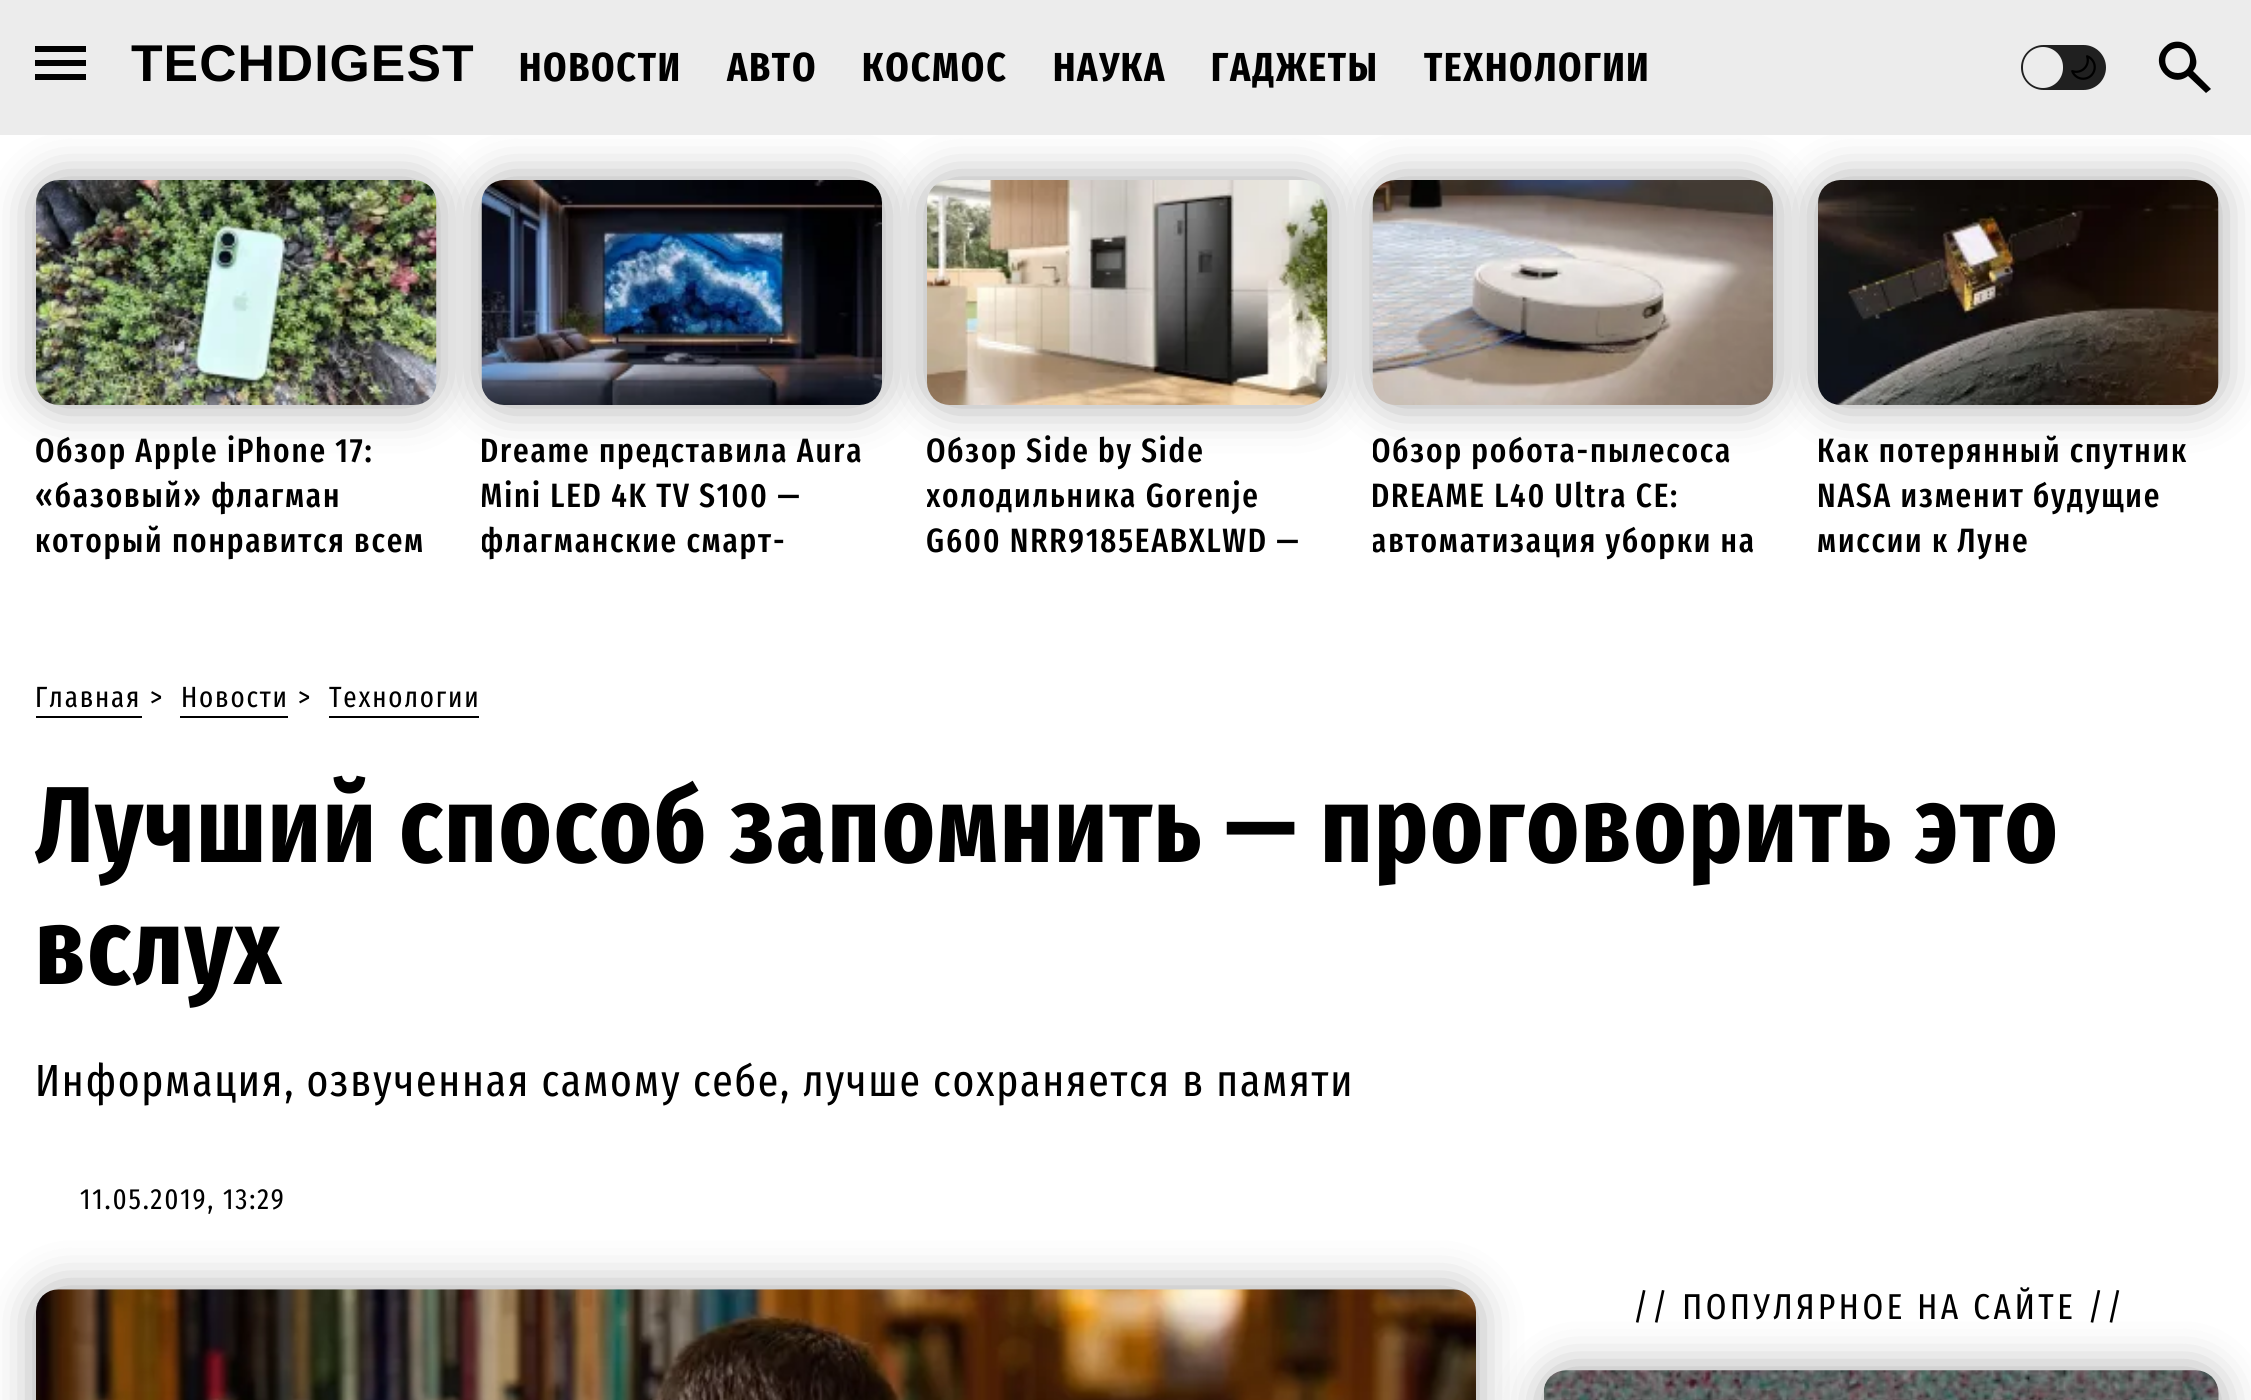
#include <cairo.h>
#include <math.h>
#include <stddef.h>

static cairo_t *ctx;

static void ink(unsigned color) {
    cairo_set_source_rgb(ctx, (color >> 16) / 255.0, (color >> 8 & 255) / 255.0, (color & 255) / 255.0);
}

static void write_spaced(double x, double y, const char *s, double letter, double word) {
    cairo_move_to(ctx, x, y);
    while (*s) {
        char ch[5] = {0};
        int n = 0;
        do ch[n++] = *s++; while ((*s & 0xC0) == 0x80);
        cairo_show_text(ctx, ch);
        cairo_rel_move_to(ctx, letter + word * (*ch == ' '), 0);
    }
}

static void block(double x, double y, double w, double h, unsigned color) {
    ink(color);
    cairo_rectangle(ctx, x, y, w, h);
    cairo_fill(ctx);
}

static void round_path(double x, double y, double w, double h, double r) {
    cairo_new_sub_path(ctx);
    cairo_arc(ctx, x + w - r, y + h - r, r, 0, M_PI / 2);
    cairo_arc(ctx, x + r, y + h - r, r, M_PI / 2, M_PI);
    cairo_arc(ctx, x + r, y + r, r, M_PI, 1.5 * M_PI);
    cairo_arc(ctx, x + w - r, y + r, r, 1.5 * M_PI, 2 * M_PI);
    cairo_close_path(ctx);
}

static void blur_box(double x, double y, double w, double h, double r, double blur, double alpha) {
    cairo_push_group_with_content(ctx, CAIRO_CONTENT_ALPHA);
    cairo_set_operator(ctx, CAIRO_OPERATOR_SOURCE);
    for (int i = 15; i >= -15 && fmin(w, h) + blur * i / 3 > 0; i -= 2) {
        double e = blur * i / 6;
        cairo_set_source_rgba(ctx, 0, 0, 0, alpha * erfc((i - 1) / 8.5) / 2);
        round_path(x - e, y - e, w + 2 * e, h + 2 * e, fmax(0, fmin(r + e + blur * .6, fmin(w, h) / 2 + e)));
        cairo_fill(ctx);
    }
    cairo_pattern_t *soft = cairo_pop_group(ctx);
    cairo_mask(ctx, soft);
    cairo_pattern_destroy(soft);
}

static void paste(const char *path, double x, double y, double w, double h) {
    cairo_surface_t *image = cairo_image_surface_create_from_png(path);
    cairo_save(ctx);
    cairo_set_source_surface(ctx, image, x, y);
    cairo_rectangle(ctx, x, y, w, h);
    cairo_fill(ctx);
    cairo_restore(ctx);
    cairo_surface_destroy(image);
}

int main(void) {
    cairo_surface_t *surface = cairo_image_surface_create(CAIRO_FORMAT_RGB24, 2251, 1400);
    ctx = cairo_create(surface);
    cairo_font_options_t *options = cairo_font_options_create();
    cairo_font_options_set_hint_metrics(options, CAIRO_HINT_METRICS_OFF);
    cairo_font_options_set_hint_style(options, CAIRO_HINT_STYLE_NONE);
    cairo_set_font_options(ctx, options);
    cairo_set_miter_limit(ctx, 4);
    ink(0xffffff);
    cairo_paint(ctx);
    ink(0x000000);
    blur_box(36, 180, 401, 225, 23, 22.5, 0.35);
    paste("pic2.png", 36, 180, 401, 225);
    blur_box(482, 180, 400, 225, 23, 22.5, 0.35);
    paste("pic3.png", 481, 180, 401, 225);
    blur_box(927, 180, 401, 225, 23, 22.5, 0.35);
    paste("pic4.png", 927, 180, 401, 225);
    blur_box(1373, 180, 400, 225, 23, 22.5, 0.35);
    paste("pic5.png", 1372, 180, 401, 225);
    blur_box(1818, 180, 401, 225, 23, 22.5, 0.35);
    block(0, 0, 2251, 135, 0xececec);
    ink(0x000000);
    cairo_set_fill_rule(ctx, CAIRO_FILL_RULE_EVEN_ODD);
    cairo_new_path(ctx);
    cairo_move_to(ctx, 35, 80);
    cairo_line_to(ctx, 35, 74);
    cairo_line_to(ctx, 86, 74);
    cairo_line_to(ctx, 86, 80);
    cairo_close_path(ctx);
    cairo_move_to(ctx, 35, 66);
    cairo_line_to(ctx, 35, 60);
    cairo_line_to(ctx, 86, 60);
    cairo_line_to(ctx, 86, 66);
    cairo_close_path(ctx);
    cairo_move_to(ctx, 35, 52);
    cairo_line_to(ctx, 35, 46);
    cairo_line_to(ctx, 86, 46);
    cairo_line_to(ctx, 86, 52);
    cairo_close_path(ctx);
    cairo_fill(ctx);
    cairo_select_font_face(ctx, "Liberation Sans", CAIRO_FONT_SLANT_NORMAL, CAIRO_FONT_WEIGHT_BOLD);
    cairo_set_font_size(ctx, 51.75);
    write_spaced(131, 81, "TECHDIGEST", 1, 0);
    cairo_select_font_face(ctx, "Fira Sans Extra Condensed", CAIRO_FONT_SLANT_NORMAL, CAIRO_FONT_WEIGHT_BOLD);
    cairo_set_font_size(ctx, 40.5);
    write_spaced(519, 81, "НОВОСТИ", 1.8, 0);
    write_spaced(727, 81, "АВТО", 1.8, 0);
    write_spaced(862, 81, "КОСМОС", 1.8, 0);
    write_spaced(1053, 81, "НАУКА", 1.8, 0);
    write_spaced(1211, 81, "ГАДЖЕТЫ", 1.8, 0);
    write_spaced(1424, 81, "ТЕХНОЛОГИИ", 1.8, 0);
    ink(0x202020);
    round_path(2021, 45, 85, 45, 22.5);
    cairo_fill(ctx);
    ink(0xececec);
    round_path(2023, 47, 40, 41, 20);
    cairo_fill(ctx);
    paste("pic1.png", 2071, 55, 25, 25);
    ink(0x000000);
    cairo_new_path(ctx);
    cairo_move_to(ctx, 2206, 93);
    cairo_line_to(ctx, 2188, 76);
    cairo_curve_to(ctx, 2170, 90, 2147, 62, 2166, 46);
    cairo_curve_to(ctx, 2170, 42, 2176, 41, 2181, 42);
    cairo_curve_to(ctx, 2189, 44, 2195, 51, 2196, 59);
    cairo_curve_to(ctx, 2197, 63, 2196, 68, 2193, 71);
    cairo_line_to(ctx, 2211, 89);
    cairo_close_path(ctx);
    cairo_move_to(ctx, 2178, 73);
    cairo_curve_to(ctx, 2194, 73, 2194, 48, 2178, 48);
    cairo_curve_to(ctx, 2161, 48, 2161, 73, 2178, 73);
    cairo_close_path(ctx);
    cairo_fill(ctx);
    cairo_select_font_face(ctx, "Fira Sans Extra Condensed Medium", CAIRO_FONT_SLANT_NORMAL, CAIRO_FONT_WEIGHT_NORMAL);
    cairo_set_font_size(ctx, 33.75);
    write_spaced(35, 462, "Обзор Apple iPhone 17:", 1.8, 0);
    write_spaced(35, 507, "«базовый» флагман", 1.8, 0);
    write_spaced(35, 552, "который понравится всем", 1.8, 0);
    write_spaced(480, 462, "Dreame представила Aura", 1.8, 0);
    cairo_save(ctx);
    cairo_set_fill_rule(ctx, CAIRO_FILL_RULE_WINDING);
    cairo_rectangle(ctx, 482, 428, 400, 135);
    cairo_clip(ctx);
    write_spaced(480, 507, "Mini LED 4K TV S100 —", 1.8, 0);
    write_spaced(480, 552, "флагманские смарт-", 1.8, 0);
    cairo_restore(ctx);
    write_spaced(926, 462, "Обзор Side by Side", 1.8, 0);
    cairo_save(ctx);
    cairo_set_fill_rule(ctx, CAIRO_FILL_RULE_WINDING);
    cairo_rectangle(ctx, 927, 428, 401, 135);
    cairo_clip(ctx);
    write_spaced(926, 507, "холодильника Gorenje", 1.8, 0);
    cairo_restore(ctx);
    write_spaced(926, 552, "G600 NRR9185EABXLWD —", 1.8, 0);
    cairo_save(ctx);
    cairo_set_fill_rule(ctx, CAIRO_FILL_RULE_WINDING);
    cairo_rectangle(ctx, 1373, 428, 400, 135);
    cairo_clip(ctx);
    write_spaced(1371, 462, "Обзор робота-пылесоса", 1.8, 0);
    cairo_restore(ctx);
    write_spaced(1371, 507, "DREAME L40 Ultra CE:", 1.8, 0);
    cairo_save(ctx);
    cairo_set_fill_rule(ctx, CAIRO_FILL_RULE_WINDING);
    cairo_rectangle(ctx, 1373, 428, 400, 135);
    cairo_clip(ctx);
    write_spaced(1371, 552, "автоматизация уборки на", 1.8, 0);
    cairo_restore(ctx);
    paste("pic6.png", 1818, 180, 401, 225);
    write_spaced(1817, 462, "Как потерянный спутник", 1.8, 0);
    write_spaced(1817, 507, "NASA изменит будущие", 1.8, 0);
    write_spaced(1817, 552, "миссии к Луне", 1.8, 0);
    cairo_select_font_face(ctx, "Fira Sans Extra Condensed", CAIRO_FONT_SLANT_NORMAL, CAIRO_FONT_WEIGHT_NORMAL);
    cairo_set_font_size(ctx, 29.25);
    write_spaced(35, 707, "Главная", 1.8, 0);
    block(36, 716, 106, 2, 0x000000);
    write_spaced(150, 707, ">", 1.8, 0);
    write_spaced(181, 707, "Новости", 1.8, 0);
    block(180, 716, 108, 2, 0x000000);
    write_spaced(298, 707, ">", 1.8, 0);
    write_spaced(329, 707, "Технологии", 1.8, 0);
    block(329, 716, 150, 2, 0x000000);
    cairo_select_font_face(ctx, "Fira Sans Extra Condensed", CAIRO_FONT_SLANT_NORMAL, CAIRO_FONT_WEIGHT_BOLD);
    cairo_set_font_size(ctx, 108);
    write_spaced(35, 862, "Лучший способ запомнить — проговорить это", 1.8, 0);
    write_spaced(35, 984, "вслух", 1.8, 0);
    cairo_select_font_face(ctx, "Fira Sans Extra Condensed", CAIRO_FONT_SLANT_NORMAL, CAIRO_FONT_WEIGHT_NORMAL);
    cairo_set_font_size(ctx, 45);
    write_spaced(35, 1096, "Информация, озвученная самому себе, лучше сохраняется в памяти", 1.8, 0);
    cairo_set_font_size(ctx, 29.25);
    write_spaced(80, 1209, "11.05.2019, 13:29", 1.8, 0);
    ink(0x000000);
    blur_box(36, 1289, 1440, 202, 23, 22.5, 0.35);
    paste("pic7.png", 36, 1289, 1440, 111);
    cairo_set_font_size(ctx, 36);
    ink(0x000000);
    write_spaced(1633, 1319, "// ПОПУЛЯРНОЕ НА САЙТЕ //", 3.6, 0);
    ink(0x000000);
    blur_box(1544, 1370, 675, 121, 23, 22.5, 0.35);
    paste("pic8.png", 1544, 1370, 675, 30);
    cairo_surface_write_to_png(surface, "screenshot.png");
    cairo_font_options_destroy(options);
    cairo_destroy(ctx);
    cairo_surface_destroy(surface);
    return 0;
}
